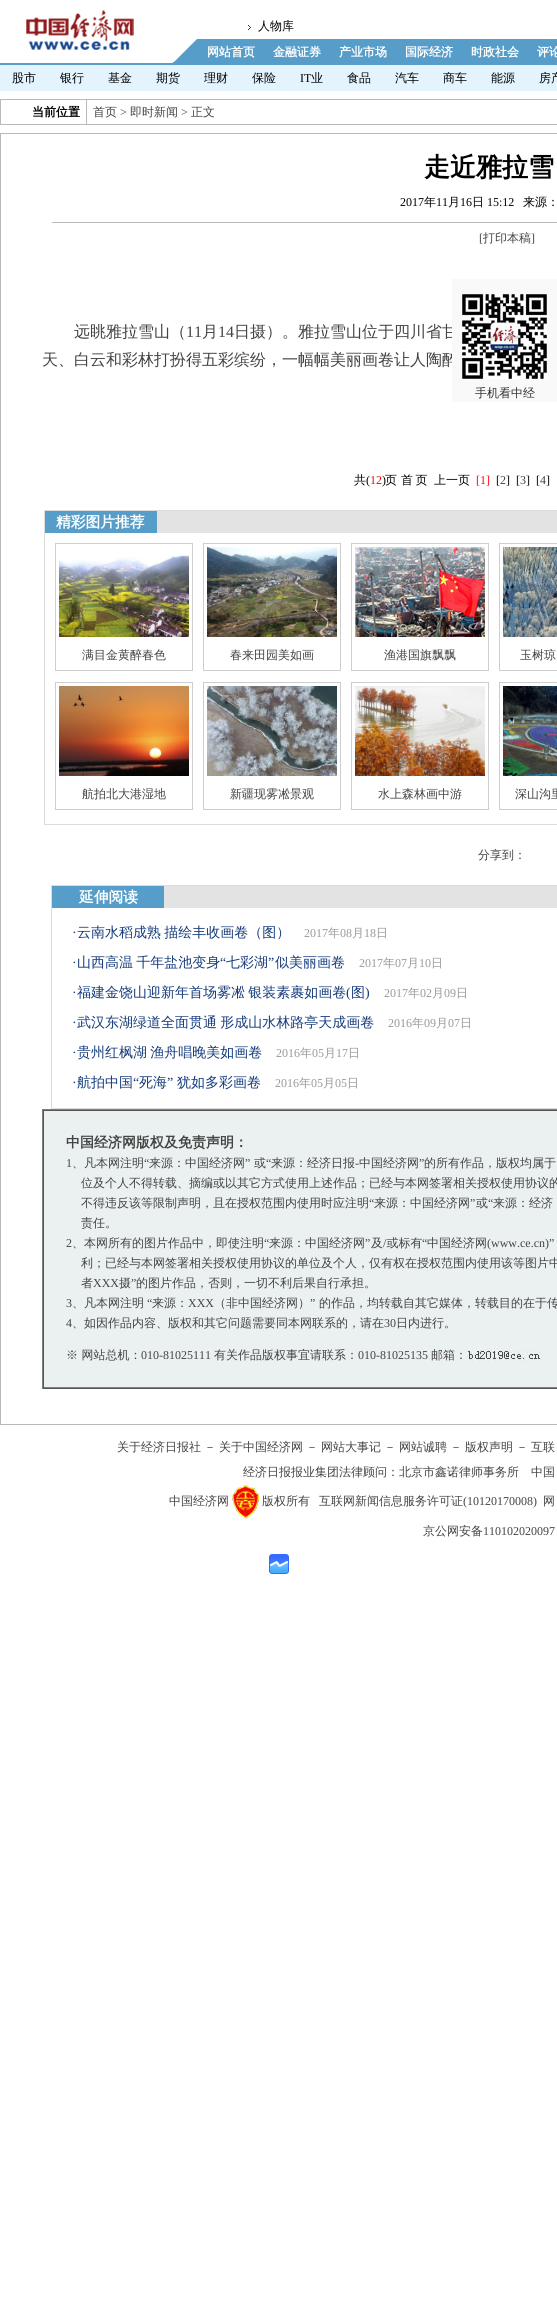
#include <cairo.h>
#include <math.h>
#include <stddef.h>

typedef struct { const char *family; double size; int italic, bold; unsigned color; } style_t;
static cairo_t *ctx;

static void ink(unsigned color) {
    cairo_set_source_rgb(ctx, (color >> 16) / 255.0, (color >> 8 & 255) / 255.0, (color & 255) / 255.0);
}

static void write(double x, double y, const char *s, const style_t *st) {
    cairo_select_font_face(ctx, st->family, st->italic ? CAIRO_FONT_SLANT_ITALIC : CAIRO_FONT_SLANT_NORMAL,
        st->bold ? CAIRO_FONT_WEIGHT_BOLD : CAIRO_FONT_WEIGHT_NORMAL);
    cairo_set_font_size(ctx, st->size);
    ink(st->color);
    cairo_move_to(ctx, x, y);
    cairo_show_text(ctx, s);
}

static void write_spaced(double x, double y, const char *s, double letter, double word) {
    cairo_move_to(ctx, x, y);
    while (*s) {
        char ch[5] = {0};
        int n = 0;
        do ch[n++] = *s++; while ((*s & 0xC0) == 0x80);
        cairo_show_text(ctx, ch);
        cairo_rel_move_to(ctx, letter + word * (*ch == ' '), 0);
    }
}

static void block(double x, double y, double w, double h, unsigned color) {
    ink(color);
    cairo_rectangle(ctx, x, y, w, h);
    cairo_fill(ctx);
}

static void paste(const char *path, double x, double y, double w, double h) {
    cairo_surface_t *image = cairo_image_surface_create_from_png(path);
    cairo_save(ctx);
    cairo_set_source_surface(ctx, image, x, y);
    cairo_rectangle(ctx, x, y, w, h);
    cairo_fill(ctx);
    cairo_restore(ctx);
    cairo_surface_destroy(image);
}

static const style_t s1 = {"WenQuanYi Zen Hei Medium", 12, 0, 0, 0x000000};
static const style_t s2 = {"WenQuanYi Zen Hei", 12, 0, 1, 0xffffff};
static const style_t s3 = {"Liberation Serif", 12, 0, 0, 0x000000};
static const style_t s4 = {"WenQuanYi Zen Hei", 12, 0, 1, 0x000000};
static const style_t s5 = {"WenQuanYi Zen Hei Medium", 12, 0, 0, 0x434343};
static const style_t s6 = {"Liberation Serif", 12, 0, 0, 0x434343};
static const style_t s7 = {"WenQuanYi Zen Hei", 26, 0, 1, 0x000000};
static const style_t s8 = {"WenQuanYi Zen Hei Medium", 16, 0, 0, 0x434343};
static const style_t s9 = {"Liberation Serif", 16, 0, 0, 0x434343};
static const style_t s10 = {"Liberation Serif", 12, 0, 0, 0xff0000};
static const style_t s11 = {"WenQuanYi Zen Hei", 14.75, 0, 1, 0xffffff};
static const style_t s12 = {"Liberation Serif", 14, 0, 0, 0x153b7c};
static const style_t s13 = {"Liberation Serif", 12, 0, 0, 0x999999};
static const style_t s14 = {"WenQuanYi Zen Hei Medium", 12, 0, 0, 0x999999};
static const style_t s15 = {"WenQuanYi Zen Hei Medium", 14, 0, 0, 0x153b7c};
static const style_t s16 = {"WenQuanYi Zen Hei", 14, 0, 1, 0x434343};
static const style_t s17 = {"WenQuanYi Zen Hei Medium", 12, 0, 0, 0x333333};

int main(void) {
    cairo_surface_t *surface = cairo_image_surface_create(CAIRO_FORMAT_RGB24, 557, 2302);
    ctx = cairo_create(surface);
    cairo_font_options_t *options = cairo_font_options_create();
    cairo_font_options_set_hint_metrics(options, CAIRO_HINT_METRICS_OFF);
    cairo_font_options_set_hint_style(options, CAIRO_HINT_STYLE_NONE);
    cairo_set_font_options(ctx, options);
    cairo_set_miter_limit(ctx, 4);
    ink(0xffffff);
    cairo_paint(ctx);
    paste("pic1.png", 0, 39, 198, 26);
    paste("pic2.png", 26, 10, 108, 40);
    paste("pic3.png", 248, 25, 3, 5);
    write(258, 30, "人物库", &s1);
    block(198, 39, 359, 26, 0x569dc9);
    write(207, 56, "网站首页", &s2);
    write(273, 56, "金融证券", &s2);
    write(339, 56, "产业市场", &s2);
    write(405, 56, "国际经济", &s2);
    write(471, 56, "时政社会", &s2);
    write(537, 56, "评论", &s2);
    block(0, 65, 557, 26, 0xe3f4fe);
    write(12, 82, "股市", &s1);
    write(60, 82, "银行", &s1);
    write(108, 82, "基金", &s1);
    write(156, 82, "期货", &s1);
    write(204, 82, "理财", &s1);
    write(252, 82, "保险", &s1);
    write(300, 82, "IT", &s3);
    write(311, 82, "业", &s1);
    write(347, 82, "食品", &s1);
    write(395, 82, "汽车", &s1);
    write(443, 82, "商车", &s1);
    write(491, 82, "能源", &s1);
    write(539, 82, "房产", &s1);
    block(0, 99, 557, 26, 0xb9b9b9);
    block(1, 100, 85, 24, 0xffffff);
    write(32, 116, "当前位置", &s4);
    block(87, 100, 470, 24, 0xffffff);
    write(93, 116, "首页", &s5);
    write(120, 116, ">", &s6);
    write(130, 116, "即时新闻", &s5);
    write(181, 116, ">", &s6);
    write(191, 116, "正文", &s5);
    cairo_rectangle(ctx, 0.5, 133.5, 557, 1291);
    ink(0xb8b8b8);
    cairo_set_line_width(ctx, 1);
    cairo_stroke(ctx);
    write(424, 176, "走近雅拉雪", &s7);
    write(400, 206, "2017", &s3);
    write(424, 206, "年", &s1);
    write(436, 206, "11", &s3);
    write(448, 206, "月", &s1);
    write(460, 206, "16", &s3);
    write(472, 206, "日", &s1);
    write(487, 206, "15:12", &s3);
    write(523, 206, "来源：", &s1);
    block(52, 222, 505, 1, 0xb9b9b9);
    write(479, 242, "[", &s6);
    write(483, 242, "打印本稿", &s5);
    write(531, 242, "]", &s6);
    write(74, 337, "远眺雅拉雪山（", &s8);
    write(186, 337, "11", &s9);
    write(202, 337, "月", &s8);
    write(218, 337, "14", &s9);
    write(234, 337, "日摄）。雅拉雪山位于四川省甘", &s8);
    write_spaced(42, 365, "天、白云和彩林打扮得五彩缤纷，一幅幅美丽画卷让人陶醉", 0, -1);
    write(354, 484, "共", &s1);
    write(366, 484, "(", &s3);
    write(370, 484, "12", &s10);
    write(382, 484, ")", &s3);
    write(385, 484, "页", &s1);
    write_spaced(401, 484, "首 页", 0, -1);
    write(434, 484, "上一页", &s1);
    write(476, 484, "[1]", &s10);
    write(496, 484, "[", &s3);
    write(500, 484, "2", &s6);
    write(506, 484, "]", &s3);
    write(516, 484, "[", &s3);
    write(520, 484, "3", &s6);
    write(526, 484, "]", &s3);
    write(536, 484, "[", &s3);
    write(540, 484, "4", &s6);
    write(546, 484, "]", &s3);
    block(44, 510, 513, 1, 0xdbdbdb);
    block(44, 510, 1, 162, 0xdbdbdb);
    block(157, 511, 400, 22, 0xe3e3e3);
    block(45, 511, 112, 22, 0x569dc9);
    write(56, 527, "精彩图片推荐", &s11);
    cairo_rectangle(ctx, 55.5, 543.5, 137, 127);
    ink(0xcecece);
    cairo_stroke(ctx);
    paste("pic4.png", 59, 555, 130, 82);
    write(82, 659, "满目金黄醉春色", &s5);
    cairo_rectangle(ctx, 203.5, 543.5, 137, 127);
    ink(0xcecece);
    cairo_stroke(ctx);
    paste("pic5.png", 207, 547, 130, 90);
    write(230, 659, "春来田园美如画", &s5);
    cairo_rectangle(ctx, 351.5, 543.5, 137, 127);
    ink(0xcecece);
    cairo_stroke(ctx);
    paste("pic6.png", 355, 547, 130, 90);
    write(384, 659, "渔港国旗飘飘", &s5);
    cairo_rectangle(ctx, 499.5, 543.5, 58, 127);
    ink(0xcecece);
    cairo_stroke(ctx);
    paste("pic7.png", 503, 547, 54, 90);
    write(520, 659, "玉树琼", &s5);
    block(44, 824, 513, 1, 0xdbdbdb);
    block(44, 672, 1, 153, 0xdbdbdb);
    cairo_rectangle(ctx, 55.5, 682.5, 137, 127);
    ink(0xcecece);
    cairo_stroke(ctx);
    paste("pic8.png", 59, 686, 130, 90);
    write(82, 798, "航拍北大港湿地", &s5);
    cairo_rectangle(ctx, 203.5, 682.5, 137, 127);
    ink(0xcecece);
    cairo_stroke(ctx);
    paste("pic9.png", 207, 686, 130, 90);
    write(230, 798, "新疆现雾凇景观", &s5);
    cairo_rectangle(ctx, 351.5, 682.5, 137, 127);
    ink(0xcecece);
    cairo_stroke(ctx);
    paste("pic10.png", 355, 686, 130, 90);
    write(378, 798, "水上森林画中游", &s5);
    cairo_rectangle(ctx, 499.5, 682.5, 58, 127);
    ink(0xcecece);
    cairo_stroke(ctx);
    paste("pic11.png", 503, 686, 54, 90);
    write(515, 798, "深山沟里", &s5);
    write(478, 859, "分享到：", &s5);
    cairo_rectangle(ctx, 51.5, 885.5, 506, 223);
    ink(0xdbdbdb);
    cairo_stroke(ctx);
    block(164, 886, 393, 22, 0xe3e3e3);
    block(52, 886, 112, 22, 0x569dc9);
    write(79, 902, "延伸阅读", &s11);
    write(72, 937, "·", &s12);
    cairo_select_font_face(ctx, "WenQuanYi Zen Hei Medium", CAIRO_FONT_SLANT_NORMAL, CAIRO_FONT_WEIGHT_NORMAL);
    write_spaced(77, 937, "云南水稻成熟 描绘丰收画卷（图）", 0, -1);
    write(304, 937, "2017", &s13);
    write(328, 937, "年", &s14);
    write(340, 937, "08", &s13);
    write(352, 937, "月", &s14);
    write(364, 937, "18", &s13);
    write(376, 937, "日", &s14);
    write(72, 967, "·", &s12);
    cairo_select_font_face(ctx, "WenQuanYi Zen Hei Medium", CAIRO_FONT_SLANT_NORMAL, CAIRO_FONT_WEIGHT_NORMAL);
    write_spaced(77, 967, "山西高温 千年盐池变身", 0, -1);
    write(220, 967, "“", &s12);
    write(226, 967, "七彩湖", &s15);
    write(268, 967, "”", &s12);
    write(275, 967, "似美丽画卷", &s15);
    write(359, 967, "2017", &s13);
    write(383, 967, "年", &s14);
    write(395, 967, "07", &s13);
    write(407, 967, "月", &s14);
    write(419, 967, "10", &s13);
    write(431, 967, "日", &s14);
    write(72, 997, "·", &s12);
    cairo_select_font_face(ctx, "WenQuanYi Zen Hei Medium", CAIRO_FONT_SLANT_NORMAL, CAIRO_FONT_WEIGHT_NORMAL);
    write_spaced(77, 997, "福建金饶山迎新年首场雾凇 银装素裹如画卷", 0, -1);
    write(346, 997, "(", &s12);
    write(351, 997, "图", &s15);
    write(365, 997, ")", &s12);
    write(384, 997, "2017", &s13);
    write(408, 997, "年", &s14);
    write(420, 997, "02", &s13);
    write(432, 997, "月", &s14);
    write(444, 997, "09", &s13);
    write(456, 997, "日", &s14);
    write(72, 1027, "·", &s12);
    cairo_select_font_face(ctx, "WenQuanYi Zen Hei Medium", CAIRO_FONT_SLANT_NORMAL, CAIRO_FONT_WEIGHT_NORMAL);
    write_spaced(77, 1027, "武汉东湖绿道全面贯通 形成山水林路亭天成画卷", 0, -1);
    write(388, 1027, "2016", &s13);
    write(412, 1027, "年", &s14);
    write(424, 1027, "09", &s13);
    write(436, 1027, "月", &s14);
    write(448, 1027, "07", &s13);
    write(460, 1027, "日", &s14);
    write(72, 1057, "·", &s12);
    cairo_select_font_face(ctx, "WenQuanYi Zen Hei Medium", CAIRO_FONT_SLANT_NORMAL, CAIRO_FONT_WEIGHT_NORMAL);
    write_spaced(77, 1057, "贵州红枫湖 渔舟唱晚美如画卷", 0, -1);
    write(276, 1057, "2016", &s13);
    write(300, 1057, "年", &s14);
    write(312, 1057, "05", &s13);
    write(324, 1057, "月", &s14);
    write(336, 1057, "17", &s13);
    write(348, 1057, "日", &s14);
    write(72, 1087, "·", &s12);
    write(77, 1087, "航拍中国", &s15);
    write(133, 1087, "“", &s12);
    write(139, 1087, "死海", &s15);
    write(167, 1087, "”", &s12);
    write(177, 1087, "犹如多彩画卷", &s15);
    write(275, 1087, "2016", &s13);
    write(299, 1087, "年", &s14);
    write(311, 1087, "05", &s13);
    write(323, 1087, "月", &s14);
    write(335, 1087, "05", &s13);
    write(347, 1087, "日", &s14);
    block(44, 1111, 513, 276, 0xebf1f1);
    block(42, 1109, 515, 1, 0x808080);
    block(42, 1388, 515, 1, 0x555555);
    block(42, 1109, 1, 280, 0x808080);
    block(43, 1110, 514, 1, 0x555555);
    block(43, 1387, 514, 1, 0x808080);
    block(43, 1110, 1, 278, 0x555555);
    write(66, 1147, "中国经济网版权及免责声明：", &s16);
    write(66, 1167, "1", &s6);
    write(72, 1167, "、凡本网注明", &s5);
    write(144, 1167, "“", &s6);
    write(149, 1167, "来源：中国经济网", &s5);
    write(245, 1167, "”", &s6);
    write(254, 1167, "或", &s5);
    write(266, 1167, "“", &s6);
    write(271, 1167, "来源：经济日报", &s5);
    write(359, 1167, "中国经济网", &s5);
    write(419, 1167, "”", &s6);
    write(424, 1167, "的所有作品，版权均属于", &s5);
    write(355, 1167, "-", &s6);
    write(81, 1187, "位及个人不得转载、摘编或以其它方式使用上述作品；已经与本网签署相关授权使用协议的", &s5);
    write(81, 1207, "不得违反该等限制声明，且在授权范围内使用时应注明", &s5);
    write(369, 1207, "“", &s6);
    write(374, 1207, "来源：中国经济网", &s5);
    write(470, 1207, "”", &s6);
    write(476, 1207, "或", &s5);
    write(488, 1207, "“", &s6);
    write(493, 1207, "来源：经济", &s5);
    write(81, 1227, "责任。", &s5);
    write(66, 1247, "2", &s6);
    write(72, 1247, "、本网所有的图片作品中，即使注明", &s5);
    write(264, 1247, "“", &s6);
    write(269, 1247, "来源：中国经济网", &s5);
    write(365, 1247, "”", &s6);
    write(371, 1247, "及 或标有", &s5);
    write(427, 1247, "中国经济网", &s5);
    write(487, 1247, "(www.ce.cn)”", &s6);
    write(383, 1247, "/", &s6);
    write(422, 1247, "“", &s6);
    write(81, 1267, "利；已经与本网签署相关授权使用协议的单位及个人，仅有权在授权范围内使用该等图片中", &s5);
    write(81, 1287, "者", &s5);
    write(93, 1287, "XXX", &s6);
    write(119, 1287, "摄", &s5);
    write(131, 1287, "”", &s6);
    write(136, 1287, "的图片作品，否则，一切不利后果自行承担。", &s5);
    write(66, 1307, "3", &s6);
    write(72, 1307, "、凡本网注明", &s5);
    write(147, 1307, "“", &s6);
    write(152, 1307, "来源：", &s5);
    write(188, 1307, "XXX", &s6);
    write(214, 1307, "（非中国经济网）", &s5);
    write(310, 1307, "”", &s6);
    write(319, 1307, "的作品，均转载自其它媒体，转载目的在于传", &s5);
    write(66, 1327, "4", &s6);
    write(72, 1327, "、如因作品内容、版权和其它问题需要同本网联系的，请在", &s5);
    write(384, 1327, "30", &s6);
    write(396, 1327, "日内进行。", &s5);
    write(66, 1359, "※ 网站总机：", &s5);
    write(141, 1359, "010-81025111", &s6);
    write(214, 1359, "有关作品版权事宜请联系：", &s5);
    write(358, 1359, "010-81025135", &s6);
    write(431, 1359, "邮箱：", &s5);
    paste("pic12.png", 467, 1345, 76, 16);
    block(452, 279, 105, 123, 0xf9f9f9);
    paste("pic13.png", 462, 294, 85, 85);
    write(475, 397, "手机看中经", &s17);
    write(117, 1451, "关于经济日报社", &s5);
    write(204, 1451, "－", &s5);
    write(219, 1451, "关于中国经济网", &s5);
    write(306, 1451, "－", &s5);
    write(321, 1451, "网站大事记", &s5);
    write(384, 1451, "－", &s5);
    write(399, 1451, "网站诚聘", &s5);
    write(450, 1451, "－", &s5);
    write(465, 1451, "版权声明", &s5);
    write(516, 1451, "－", &s5);
    write(531, 1451, "互联", &s5);
    write(243, 1476, "经济日报报业集团法律顾问：北京市鑫诺律师事务所", &s5);
    write(531, 1476, "中国", &s5);
    write(169, 1505, "中国经济网", &s5);
    paste("pic14.png", 232, 1485, 27, 34);
    write(262, 1505, "版权所有", &s5);
    write(319, 1505, "互联网新闻信息服务许可证", &s5);
    write(463, 1505, "(10120170008)", &s6);
    write(543, 1505, "网", &s5);
    write(423, 1535, "京公网安备", &s5);
    write(483, 1535, "110102020097", &s6);
    paste("pic15.png", 269, 1554, 20, 20);
    cairo_surface_write_to_png(surface, "screenshot.png");
    cairo_font_options_destroy(options);
    cairo_destroy(ctx);
    cairo_surface_destroy(surface);
    return 0;
}
